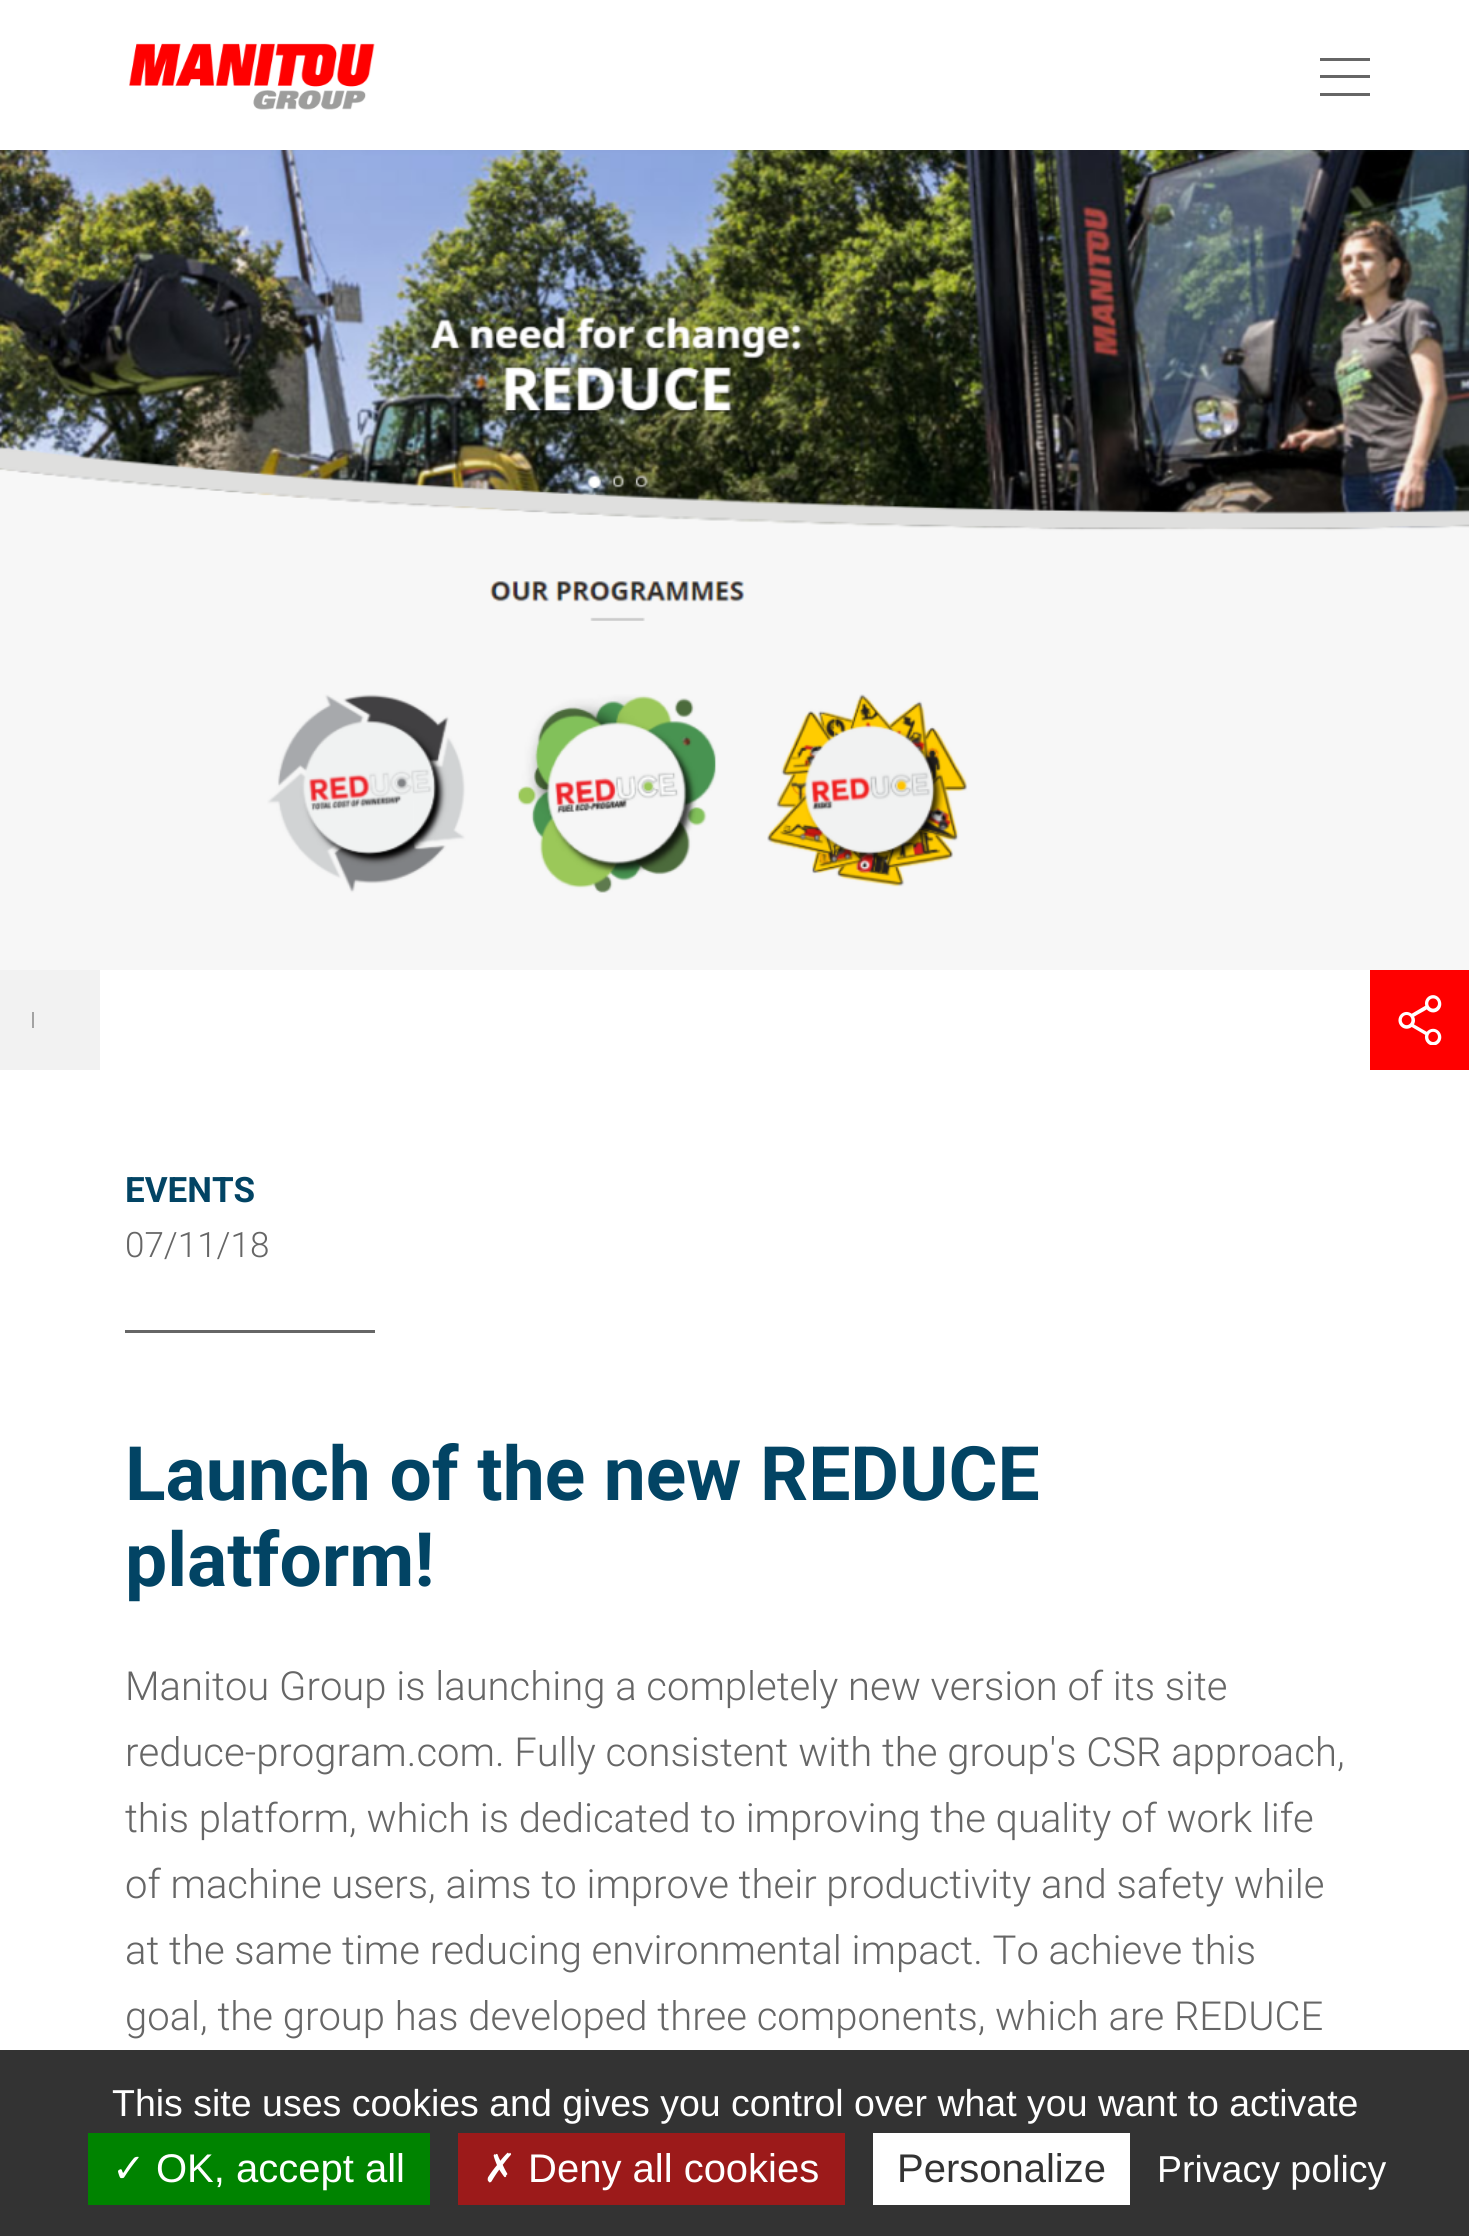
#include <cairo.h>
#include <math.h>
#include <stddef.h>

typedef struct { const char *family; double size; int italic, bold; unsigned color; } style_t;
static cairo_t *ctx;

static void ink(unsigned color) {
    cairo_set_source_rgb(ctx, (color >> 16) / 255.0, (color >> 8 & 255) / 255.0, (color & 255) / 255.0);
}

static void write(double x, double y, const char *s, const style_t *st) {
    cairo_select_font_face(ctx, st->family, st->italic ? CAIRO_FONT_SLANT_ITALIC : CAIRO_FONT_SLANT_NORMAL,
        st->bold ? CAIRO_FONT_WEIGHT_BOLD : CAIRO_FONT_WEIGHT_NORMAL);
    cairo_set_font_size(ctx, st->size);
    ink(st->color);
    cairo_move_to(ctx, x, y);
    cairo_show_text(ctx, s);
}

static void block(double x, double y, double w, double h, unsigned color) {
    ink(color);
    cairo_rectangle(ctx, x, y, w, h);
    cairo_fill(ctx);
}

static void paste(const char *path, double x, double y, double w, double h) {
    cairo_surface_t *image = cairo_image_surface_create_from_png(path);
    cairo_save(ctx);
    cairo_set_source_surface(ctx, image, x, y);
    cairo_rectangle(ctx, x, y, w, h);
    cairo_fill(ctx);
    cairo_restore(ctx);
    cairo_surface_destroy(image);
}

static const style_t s1 = {"Roboto", 35, 0, 1, 0x024464};
static const style_t s2 = {"Roboto Light", 35, 0, 0, 0x666666};
static const style_t s3 = {"Roboto", 75, 0, 1, 0x024464};
static const style_t s4 = {"Roboto Light", 40, 0, 0, 0x666666};
static const style_t s5 = {"Liberation Sans", 37.5, 0, 0, 0xffffff};
static const style_t s6 = {"DejaVu Sans", 40, 0, 0, 0xffffff};
static const style_t s7 = {"Liberation Sans", 40, 0, 0, 0xffffff};
static const style_t s8 = {"Liberation Sans", 40, 0, 0, 0x333333};

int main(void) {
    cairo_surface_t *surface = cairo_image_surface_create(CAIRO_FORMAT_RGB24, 1469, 2236);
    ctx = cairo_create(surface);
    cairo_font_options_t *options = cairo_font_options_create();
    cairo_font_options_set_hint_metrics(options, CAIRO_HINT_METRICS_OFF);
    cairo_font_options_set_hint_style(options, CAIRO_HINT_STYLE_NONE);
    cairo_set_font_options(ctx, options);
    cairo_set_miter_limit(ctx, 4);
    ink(0xffffff);
    cairo_paint(ctx);
    paste("pic1.png", 129, 43, 246, 67);
    block(1320, 58, 50, 3, 0x666666);
    block(1320, 75, 50, 3, 0x666666);
    block(1320, 93, 50, 3, 0x666666);
    paste("pic2.png", 0, 150, 1469, 820);
    block(0, 970, 100, 100, 0xf2f2f2);
    block(32, 1012, 2, 16, 0xa3a3a3);
    block(1370, 970, 99, 100, 0xff0000);
    paste("pic3.png", 1398, 995, 44, 50);
    write(125, 1202, "EVENTS", &s1);
    write(125, 1257, "07/11/18", &s2);
    block(125, 1330, 250, 3, 0x666666);
    write(125, 1500, "Launch of the new REDUCE", &s3);
    write(125, 1586, "platform!", &s3);
    write(125, 1700, "Manitou Group is launching a completely new version of its site", &s4);
    write(125, 1766, "reduce-program.com. Fully consistent with the group's CSR approach,", &s4);
    write(125, 1832, "this platform, which is dedicated to improving the quality of work life", &s4);
    write(125, 1898, "of machine users, aims to improve their productivity and safety while", &s4);
    write(125, 1964, "at the same time reducing environmental impact. To achieve this", &s4);
    write(125, 2030, "goal, the group has developed three components, which are REDUCE", &s4);
    block(0, 2050, 1469, 186, 0x333333);
    write(112, 2116, "This site uses cookies and gives you control over what you want to activate", &s5);
    block(88, 2133, 342, 72, 0x008300);
    write(112, 2182, "✓", &s6);
    write(156, 2182, "OK, accept all", &s7);
    block(458, 2133, 387, 72, 0x9c1a1a);
    write(483, 2182, "✗", &s6);
    write(528, 2182, "Deny all cookies", &s7);
    block(873, 2133, 257, 72, 0xffffff);
    write(897, 2182, "Personalize", &s8);
    write(1157, 2182, "Privacy policy", &s5);
    cairo_surface_write_to_png(surface, "screenshot.png");
    cairo_font_options_destroy(options);
    cairo_destroy(ctx);
    cairo_surface_destroy(surface);
    return 0;
}
